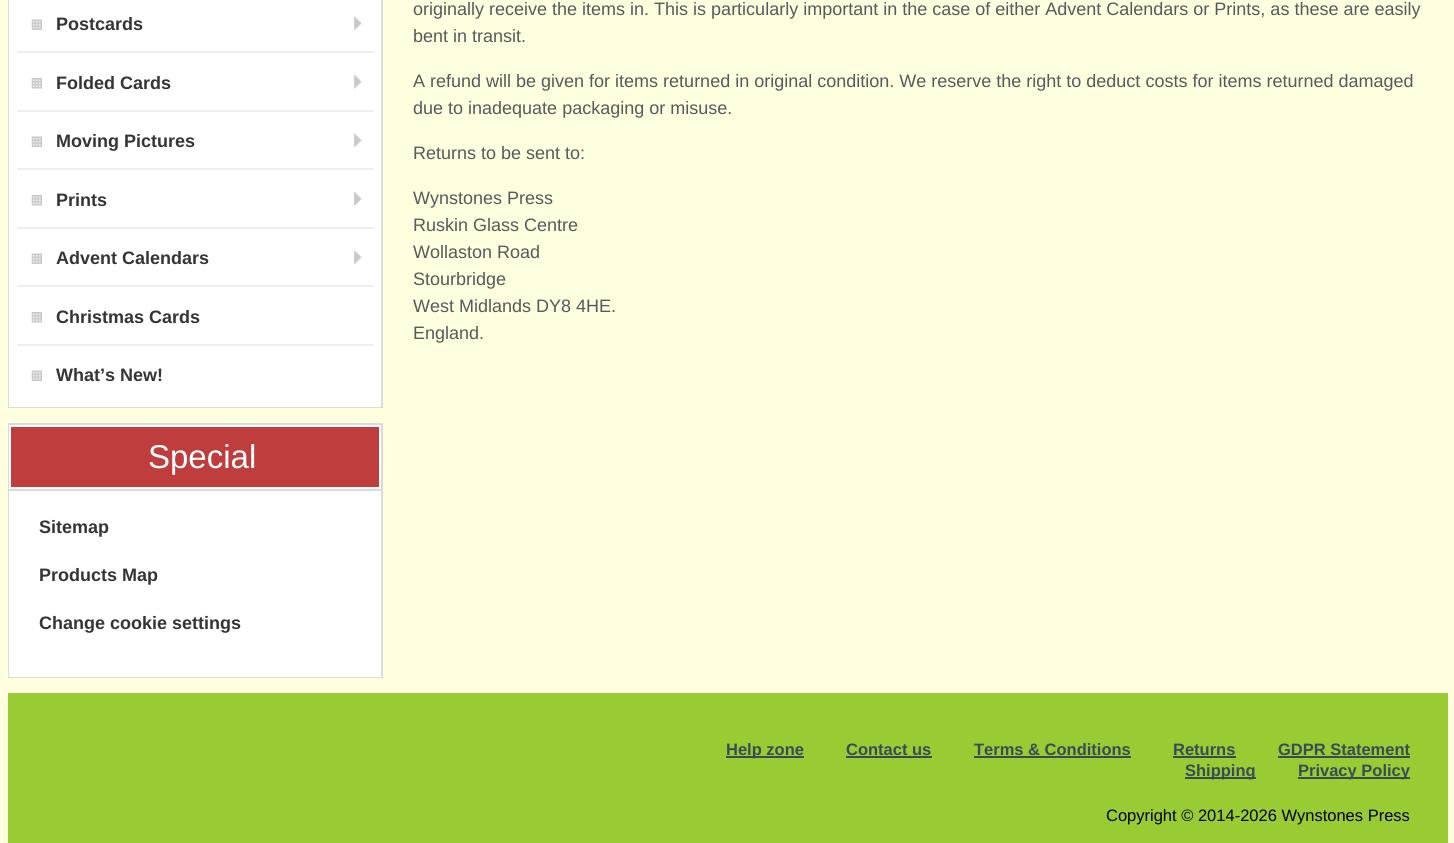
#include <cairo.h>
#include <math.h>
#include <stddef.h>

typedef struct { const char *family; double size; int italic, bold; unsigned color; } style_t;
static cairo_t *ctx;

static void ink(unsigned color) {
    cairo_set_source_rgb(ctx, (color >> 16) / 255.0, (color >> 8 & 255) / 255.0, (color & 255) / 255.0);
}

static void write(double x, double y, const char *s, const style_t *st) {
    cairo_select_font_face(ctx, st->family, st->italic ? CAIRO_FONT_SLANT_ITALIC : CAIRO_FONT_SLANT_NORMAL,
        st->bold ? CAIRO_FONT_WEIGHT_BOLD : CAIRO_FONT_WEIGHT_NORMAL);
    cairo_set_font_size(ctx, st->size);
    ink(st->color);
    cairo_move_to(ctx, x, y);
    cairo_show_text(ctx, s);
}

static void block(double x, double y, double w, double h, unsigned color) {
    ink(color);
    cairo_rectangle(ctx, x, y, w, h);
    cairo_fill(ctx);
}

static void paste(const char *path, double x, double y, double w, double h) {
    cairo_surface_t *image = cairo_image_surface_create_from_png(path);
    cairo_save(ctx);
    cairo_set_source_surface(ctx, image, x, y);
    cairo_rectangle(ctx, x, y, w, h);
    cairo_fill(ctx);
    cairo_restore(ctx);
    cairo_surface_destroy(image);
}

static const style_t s1 = {"Liberation Sans", 18, 0, 1, 0x353535};
static const style_t s2 = {"Liberation Sans", 33, 0, 0, 0xffffff};
static const style_t s3 = {"Liberation Sans", 18, 0, 0, 0x58595b};
static const style_t s4 = {"Liberation Sans", 16.5, 0, 1, 0x394b57};
static const style_t s5 = {"Liberation Sans", 16.5, 0, 0, 0x000000};

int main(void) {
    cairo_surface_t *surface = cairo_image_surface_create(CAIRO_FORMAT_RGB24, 1454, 843);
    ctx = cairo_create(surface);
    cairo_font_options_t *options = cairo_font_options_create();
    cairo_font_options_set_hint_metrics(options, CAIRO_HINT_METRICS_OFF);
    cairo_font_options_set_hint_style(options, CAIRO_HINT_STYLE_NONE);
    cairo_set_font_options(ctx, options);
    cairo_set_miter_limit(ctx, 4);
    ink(0xfffedf);
    cairo_paint(ctx);
    cairo_rectangle(ctx, 9, -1, 373, 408);
    ink(0xdbdbdb);
    cairo_stroke(ctx);
    block(9, 0, 372, 407, 0xffffff);
    block(17, 51, 357, 2, 0xefefef);
    paste("pic1.png", 353, 16, 9, 14);
    paste("pic2.png", 31, 19, 11, 11);
    write(56, 30, "Postcards", &s1);
    block(17, 110, 357, 2, 0xefefef);
    paste("pic3.png", 353, 75, 9, 14);
    paste("pic4.png", 31, 78, 11, 11);
    write(56, 89, "Folded Cards", &s1);
    block(17, 168, 357, 2, 0xefefef);
    paste("pic1.png", 353, 133, 9, 14);
    paste("pic2.png", 31, 136, 11, 11);
    write(56, 147, "Moving Pictures", &s1);
    block(17, 227, 357, 2, 0xefefef);
    paste("pic3.png", 353, 192, 9, 14);
    paste("pic4.png", 31, 195, 11, 11);
    write(56, 206, "Prints", &s1);
    block(17, 285, 357, 2, 0xefefef);
    paste("pic1.png", 353, 250, 9, 14);
    paste("pic2.png", 31, 253, 11, 11);
    write(56, 264, "Advent Calendars", &s1);
    block(17, 344, 357, 2, 0xefefef);
    paste("pic4.png", 31, 312, 11, 11);
    write(56, 323, "Christmas Cards", &s1);
    paste("pic2.png", 31, 370, 11, 11);
    write(56, 381, "What’s New!", &s1);
    cairo_rectangle(ctx, 9, 424, 373, 253);
    ink(0xdbdbdb);
    cairo_stroke(ctx);
    ink(0xbf3d3d);
    cairo_rectangle(ctx, 10, 426, 370, 62);
    cairo_fill_preserve(ctx);
    ink(0xffffff);
    cairo_stroke(ctx);
    write(148, 468, "Special", &s2);
    block(9, 491, 372, 186, 0xffffff);
    block(9, 489, 372, 2, 0xdbdbdb);
    write(39, 533, "Sitemap", &s1);
    write(39, 581, "Products Map", &s1);
    write(39, 629, "Change cookie settings", &s1);
    write(413, 15, "originally receive the items in. This is particularly important in the case of either Advent Calendars or Prints, as these are easily", &s3);
    write(413, 42, "bent in transit.", &s3);
    write(413, 87, "A refund will be given for items returned in original condition. We reserve the right to deduct costs for items returned damaged", &s3);
    write(413, 114, "due to inadequate packaging or misuse.", &s3);
    write(413, 159, "Returns to be sent to:", &s3);
    write(413, 204, "Wynstones Press", &s3);
    write(413, 231, "Ruskin Glass Centre", &s3);
    write(413, 258, "Wollaston Road", &s3);
    write(413, 285, "Stourbridge", &s3);
    write(413, 312, "West Midlands DY8 4HE.", &s3);
    write(413, 339, "England.", &s3);
    block(8, 693, 1440, 150, 0x99cc33);
    block(726, 756, 78, 2, 0x394b57);
    write(726, 755, "Help zone", &s4);
    write(846, 755, "Contact us", &s4);
    block(846, 756, 86, 2, 0x394b57);
    write(974, 755, "Terms & Conditions", &s4);
    block(974, 756, 157, 2, 0x394b57);
    write(1173, 755, "Returns", &s4);
    block(1173, 756, 63, 2, 0x394b57);
    write(1278, 755, "GDPR Statement", &s4);
    block(1278, 756, 132, 2, 0x394b57);
    block(1185, 777, 71, 2, 0x394b57);
    write(1185, 776, "Shipping", &s4);
    block(1298, 777, 112, 2, 0x394b57);
    write(1298, 776, "Privacy Policy", &s4);
    write(1106, 821, "Copyright © 2014-2026 Wynstones Press", &s5);
    cairo_surface_write_to_png(surface, "screenshot.png");
    cairo_font_options_destroy(options);
    cairo_destroy(ctx);
    cairo_surface_destroy(surface);
    return 0;
}
